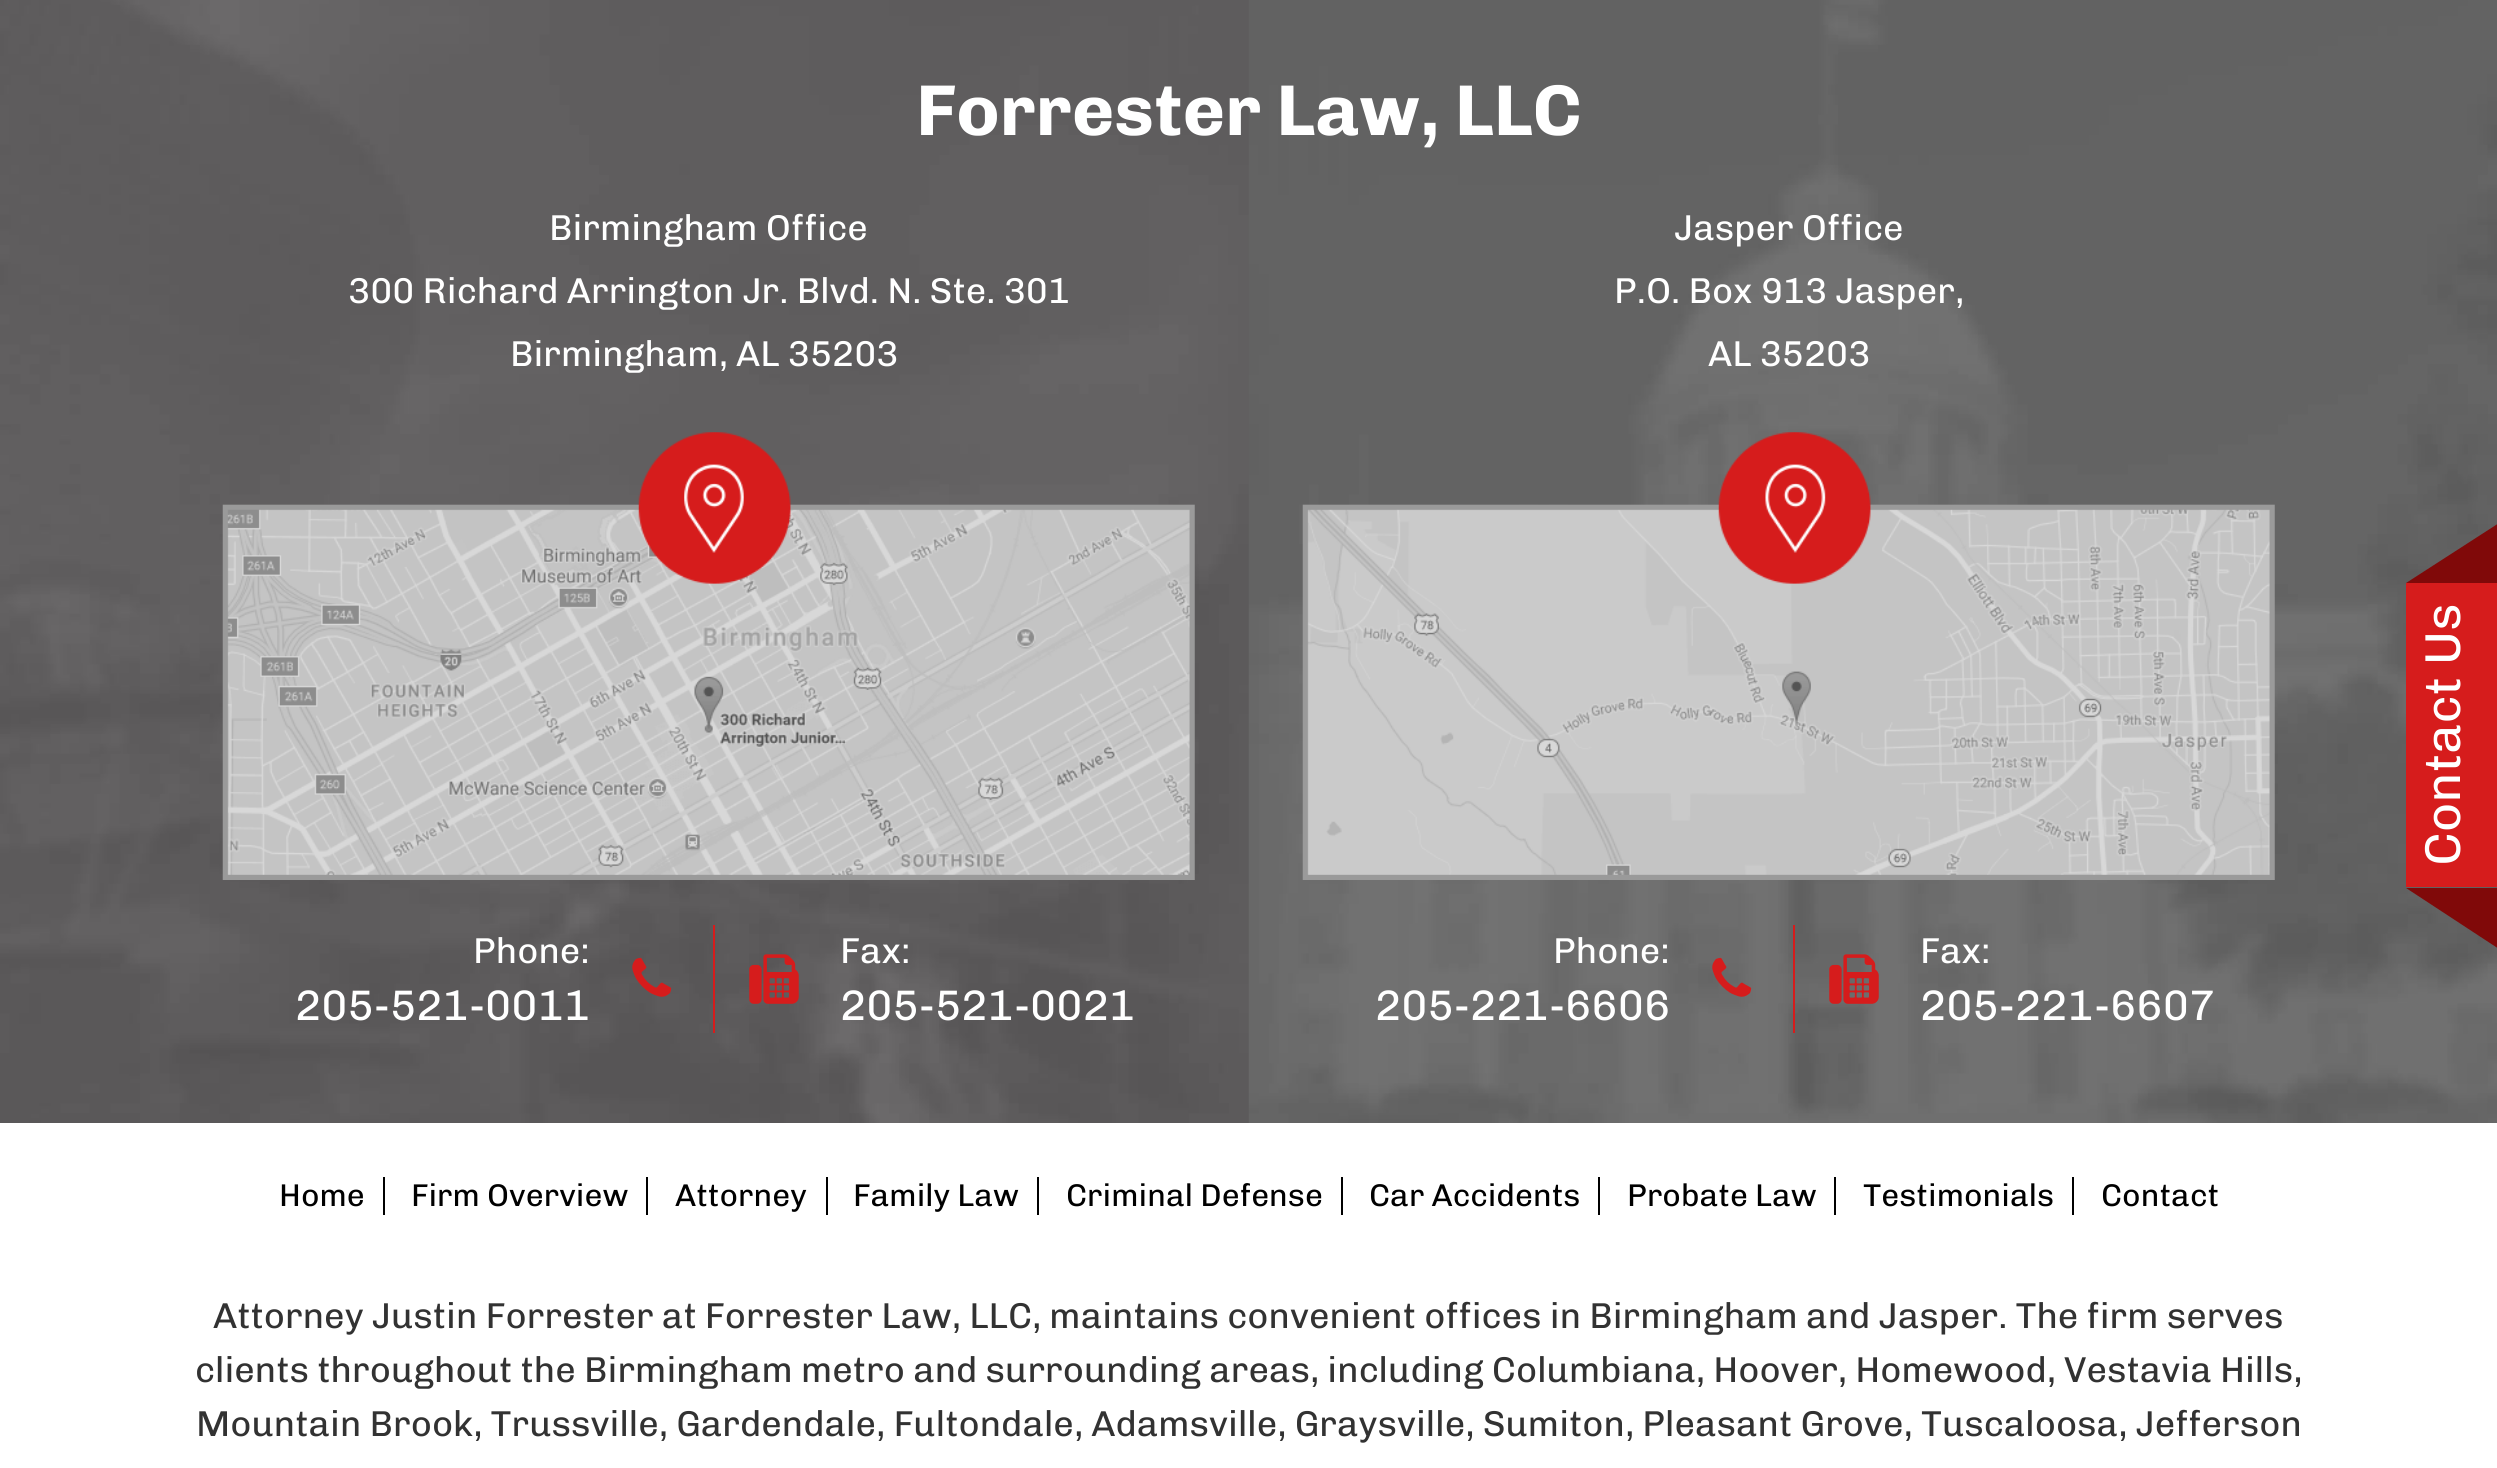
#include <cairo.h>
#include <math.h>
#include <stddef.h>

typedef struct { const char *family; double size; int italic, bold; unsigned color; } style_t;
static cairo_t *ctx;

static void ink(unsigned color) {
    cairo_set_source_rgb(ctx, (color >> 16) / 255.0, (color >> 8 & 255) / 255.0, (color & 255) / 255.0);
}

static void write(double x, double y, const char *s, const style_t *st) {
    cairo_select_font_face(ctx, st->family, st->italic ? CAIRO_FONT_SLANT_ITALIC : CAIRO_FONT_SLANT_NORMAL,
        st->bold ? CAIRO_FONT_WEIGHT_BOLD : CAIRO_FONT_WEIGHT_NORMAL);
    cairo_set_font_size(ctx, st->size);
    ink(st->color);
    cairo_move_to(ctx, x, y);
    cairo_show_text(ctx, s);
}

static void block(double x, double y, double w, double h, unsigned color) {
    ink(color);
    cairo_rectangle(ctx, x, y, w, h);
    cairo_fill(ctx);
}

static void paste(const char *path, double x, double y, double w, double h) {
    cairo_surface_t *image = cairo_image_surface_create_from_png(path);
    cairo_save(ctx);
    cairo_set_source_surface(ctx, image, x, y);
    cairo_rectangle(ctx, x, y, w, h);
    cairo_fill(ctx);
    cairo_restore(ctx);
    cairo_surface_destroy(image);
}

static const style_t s1 = {"Chivo", 72, 0, 1, 0xffffff};
static const style_t s2 = {"Chivo", 36, 0, 0, 0xffffff};
static const style_t s3 = {"Chivo", 42.75, 0, 0, 0xffffff};
static const style_t s4 = {"Chivo", 31.5, 0, 0, 0x000000};
static const style_t s5 = {"Chivo", 36, 0, 0, 0x323232};
static const style_t s6 = {"Chivo", 50.5, 0, 0, 0xffffff};

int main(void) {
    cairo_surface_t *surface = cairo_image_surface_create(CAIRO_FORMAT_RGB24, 2497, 1468);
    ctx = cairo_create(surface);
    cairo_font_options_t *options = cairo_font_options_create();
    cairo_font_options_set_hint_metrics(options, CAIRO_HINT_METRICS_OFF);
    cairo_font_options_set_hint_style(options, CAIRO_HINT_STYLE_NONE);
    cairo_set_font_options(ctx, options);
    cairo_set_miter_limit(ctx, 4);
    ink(0xffffff);
    cairo_paint(ctx);
    paste("pic1.png", 0, 0, 2497, 1123);
    write(916, 135, "Forrester Law, LLC", &s1);
    write(549, 240, "Birmingham Office", &s2);
    write(348, 303, "300 Richard Arrington Jr. Blvd. N. Ste. 301", &s2);
    write(510, 366, "Birmingham, AL 35203", &s2);
    paste("pic2.png", 222, 432, 973, 448);
    write(473, 963, "Phone:", &s2);
    write(295, 1020, "205-521-0011", &s3);
    paste("pic3.png", 632, 957, 40, 40);
    block(713, 925, 2, 108, 0xd61c1c);
    paste("pic4.png", 749, 954, 50, 50);
    write(840, 963, "Fax:", &s2);
    write(840, 1020, "205-521-0021", &s3);
    write(1674, 240, "Jasper Office", &s2);
    write(1614, 303, "P.O. Box 913 Jasper,", &s2);
    write(1708, 366, "AL 35203", &s2);
    paste("pic5.png", 1302, 432, 973, 448);
    write(1553, 963, "Phone:", &s2);
    write(1375, 1020, "205-221-6606", &s3);
    paste("pic6.png", 1712, 957, 40, 40);
    block(1793, 925, 2, 108, 0xd61c1c);
    paste("pic7.png", 1829, 954, 50, 50);
    write(1920, 963, "Fax:", &s2);
    write(1920, 1020, "205-221-6607", &s3);
    write(279, 1206, "Home", &s4);
    block(383, 1177, 2, 38, 0x000000);
    write(411, 1206, "Firm Overview", &s4);
    block(646, 1177, 2, 38, 0x000000);
    write(675, 1206, "Attorney", &s4);
    block(826, 1177, 2, 38, 0x000000);
    write(853, 1206, "Family Law", &s4);
    block(1037, 1177, 2, 38, 0x000000);
    write(1066, 1206, "Criminal Defense", &s4);
    block(1341, 1177, 2, 38, 0x000000);
    write(1369, 1206, "Car Accidents", &s4);
    block(1598, 1177, 2, 38, 0x000000);
    write(1627, 1206, "Probate Law", &s4);
    block(1834, 1177, 2, 38, 0x000000);
    write(1863, 1206, "Testimonials", &s4);
    block(2072, 1177, 2, 38, 0x000000);
    write(2101, 1206, "Contact", &s4);
    write(213, 1328, "Attorney Justin Forrester at Forrester Law, LLC, maintains convenient offices in Birmingham and Jasper. The firm serves", &s5);
    write(195, 1382, "clients throughout the Birmingham metro and surrounding areas, including Columbiana, Hoover, Homewood, Vestavia Hills,", &s5);
    write(196, 1436, "Mountain Brook, Trussville, Gardendale, Fultondale, Adamsville, Graysville, Sumiton, Pleasant Grove, Tuscaloosa, Jefferson", &s5);
    block(2406, 583, 91, 304, 0xd61c1c);
    ink(0x800909);
    cairo_new_path(ctx);
    cairo_move_to(ctx, 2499, 523);
    cairo_line_to(ctx, 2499, 583);
    cairo_line_to(ctx, 2406, 583);
    cairo_close_path(ctx);
    cairo_fill(ctx);
    cairo_save(ctx);
    cairo_translate(ctx, 2460, 866);
    cairo_rotate(ctx, -90 * M_PI / 180);
    write(0, 0, "Contact Us", &s6);
    cairo_restore(ctx);
    ink(0x800909);
    cairo_new_path(ctx);
    cairo_move_to(ctx, 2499, 888);
    cairo_line_to(ctx, 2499, 949);
    cairo_line_to(ctx, 2406, 888);
    cairo_close_path(ctx);
    cairo_fill(ctx);
    cairo_surface_write_to_png(surface, "screenshot.png");
    cairo_font_options_destroy(options);
    cairo_destroy(ctx);
    cairo_surface_destroy(surface);
    return 0;
}
